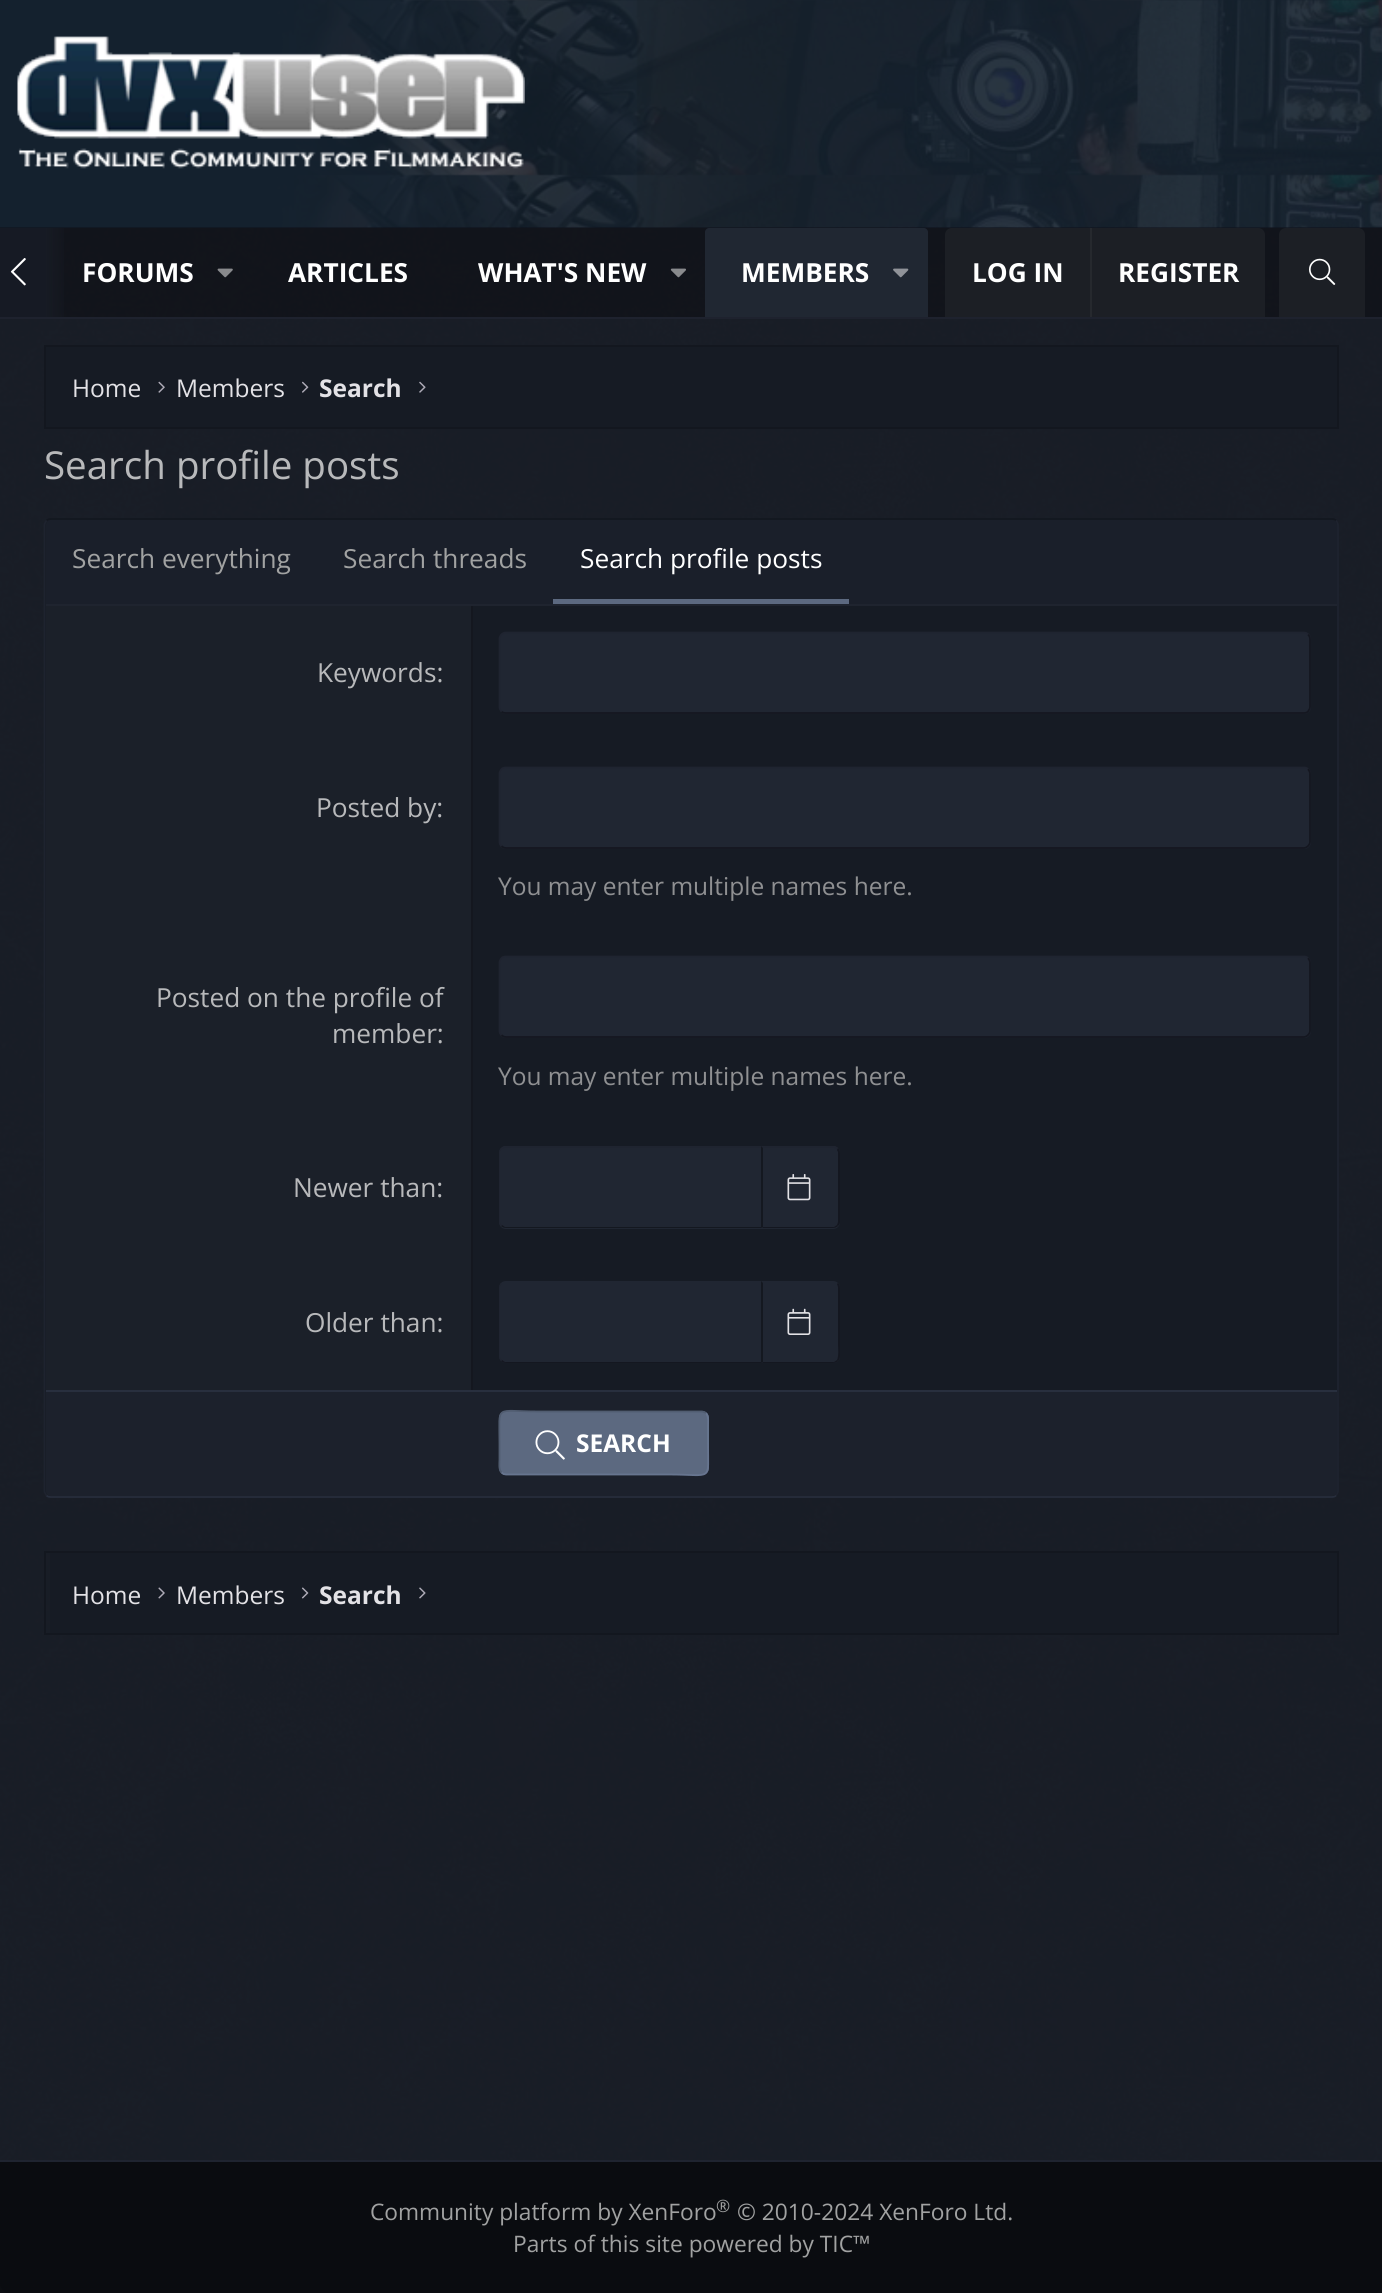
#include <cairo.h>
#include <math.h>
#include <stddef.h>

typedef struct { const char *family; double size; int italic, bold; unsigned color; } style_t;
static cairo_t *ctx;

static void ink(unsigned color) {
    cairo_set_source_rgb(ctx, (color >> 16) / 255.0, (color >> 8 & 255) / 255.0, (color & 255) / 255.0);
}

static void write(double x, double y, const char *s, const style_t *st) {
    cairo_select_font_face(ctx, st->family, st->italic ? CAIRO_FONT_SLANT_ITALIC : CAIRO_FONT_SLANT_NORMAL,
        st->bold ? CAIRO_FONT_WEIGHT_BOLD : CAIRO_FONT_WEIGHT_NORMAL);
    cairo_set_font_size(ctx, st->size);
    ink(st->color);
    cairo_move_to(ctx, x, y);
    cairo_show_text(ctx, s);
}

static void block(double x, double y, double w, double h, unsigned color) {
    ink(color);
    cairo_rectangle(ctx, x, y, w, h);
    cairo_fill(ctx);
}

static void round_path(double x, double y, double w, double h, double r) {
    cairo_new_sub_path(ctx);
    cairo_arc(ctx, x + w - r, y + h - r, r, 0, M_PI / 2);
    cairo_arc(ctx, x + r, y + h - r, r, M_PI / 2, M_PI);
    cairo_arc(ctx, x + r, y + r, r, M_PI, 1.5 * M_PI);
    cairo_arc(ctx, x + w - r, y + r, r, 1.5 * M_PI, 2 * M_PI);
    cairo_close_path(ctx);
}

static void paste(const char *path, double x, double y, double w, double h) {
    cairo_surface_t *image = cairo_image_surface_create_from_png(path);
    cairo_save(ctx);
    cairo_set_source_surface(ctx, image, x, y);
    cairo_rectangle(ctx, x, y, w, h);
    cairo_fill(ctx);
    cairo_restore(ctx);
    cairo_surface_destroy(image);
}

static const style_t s1 = {"Open Sans", 26.25, 0, 1, 0xffffff};
static const style_t s2 = {"Open Sans", 24.5, 0, 0, 0xe3e2e6};
static const style_t s3 = {"Open Sans", 24.5, 0, 1, 0xe3e2e6};
static const style_t s4 = {"Open Sans", 38.5, 0, 0, 0xb8b9bb};
static const style_t s5 = {"Open Sans", 26.25, 0, 0, 0xa1a2a2};
static const style_t s6 = {"Open Sans", 26.25, 0, 0, 0xffffff};
static const style_t s7 = {"Open Sans", 26.25, 0, 0, 0xb8b9bb};
static const style_t s8 = {"Open Sans", 24.5, 0, 0, 0x8f9092};
static const style_t s9 = {"Open Sans", 24.5, 0, 1, 0xffffff};
static const style_t s10 = {"Open Sans", 22.75, 0, 0, 0xa1a2a2};
static const style_t s11 = {"Open Sans", 17, 0, 0, 0xa1a2a2};

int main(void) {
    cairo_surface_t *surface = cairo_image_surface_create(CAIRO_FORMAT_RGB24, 1382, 2293);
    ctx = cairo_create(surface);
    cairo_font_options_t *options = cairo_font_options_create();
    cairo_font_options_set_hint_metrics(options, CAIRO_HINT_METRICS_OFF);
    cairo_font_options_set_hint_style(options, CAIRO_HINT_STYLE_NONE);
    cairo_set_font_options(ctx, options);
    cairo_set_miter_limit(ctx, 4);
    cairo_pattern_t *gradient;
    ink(0xffffff);
    cairo_paint(ctx);
    paste("pic1.png", 0, 228, 1382, 2065);
    block(0, 227, 1382, 1, 0x0e111b);
    paste("pic2.png", 0, 0, 1382, 228);
    paste("pic3.png", 17, 36, 508, 133);
    cairo_set_source_rgba(ctx, 0, 0, 0, 0.3);
    cairo_rectangle(ctx, 0, 228, 1382, 91);
    cairo_fill(ctx);
    cairo_set_source_rgba(ctx, 0.122, 0.141, 0.188, 0.9);
    cairo_rectangle(ctx, 0, 317, 1382, 2);
    cairo_fill(ctx);
    gradient = cairo_pattern_create_linear(0, 272, 70, 272);
    cairo_pattern_add_color_stop_rgba(gradient, 0.66, 0.09, 0.106, 0.141, 0.98);
    cairo_pattern_add_color_stop_rgba(gradient, 1, 0.09, 0.106, 0.141, 0);
    cairo_set_source(ctx, gradient);
    cairo_pattern_destroy(gradient);
    cairo_rectangle(ctx, 0, 228, 64, 89);
    cairo_fill(ctx);
    paste("pic4.png", 10, 258, 16, 28);
    write(82, 282, "FORUMS", &s1);
    paste("pic5.png", 217, 268, 16, 10);
    write(288, 282, "ARTICLES", &s1);
    write(478, 282, "WHAT'S NEW", &s1);
    paste("pic6.png", 670, 268, 16, 10);
    ink(0x202732);
    cairo_new_path(ctx);
    cairo_move_to(ctx, 709, 228);
    cairo_line_to(ctx, 924, 228);
    cairo_curve_to(ctx, 926, 228, 928, 230, 928, 232);
    cairo_line_to(ctx, 928, 317);
    cairo_line_to(ctx, 705, 317);
    cairo_line_to(ctx, 705, 232);
    cairo_curve_to(ctx, 705, 230, 707, 228, 709, 228);
    cairo_close_path(ctx);
    cairo_fill(ctx);
    write(741, 282, "MEMBERS", &s1);
    paste("pic7.png", 893, 268, 16, 10);
    ink(0x1c1f25);
    cairo_new_path(ctx);
    cairo_move_to(ctx, 952, 228);
    cairo_line_to(ctx, 1258, 228);
    cairo_curve_to(ctx, 1262, 228, 1265, 231, 1265, 235);
    cairo_line_to(ctx, 1265, 317);
    cairo_line_to(ctx, 945, 317);
    cairo_line_to(ctx, 945, 235);
    cairo_curve_to(ctx, 945, 231, 948, 228, 952, 228);
    cairo_close_path(ctx);
    cairo_fill(ctx);
    write(972, 282, "LOG IN", &s1);
    block(1090, 228, 2, 89, 0x26292e);
    write(1118, 282, "REGISTER", &s1);
    ink(0x1c1f25);
    cairo_new_path(ctx);
    cairo_move_to(ctx, 1286, 228);
    cairo_line_to(ctx, 1358, 228);
    cairo_curve_to(ctx, 1362, 228, 1365, 231, 1365, 235);
    cairo_line_to(ctx, 1365, 317);
    cairo_line_to(ctx, 1279, 317);
    cairo_line_to(ctx, 1279, 235);
    cairo_curve_to(ctx, 1279, 231, 1282, 228, 1286, 228);
    cairo_close_path(ctx);
    cairo_fill(ctx);
    paste("pic8.png", 1309, 258, 27, 27);
    cairo_set_source_rgba(ctx, 0.09, 0.106, 0.141, 0.9);
    cairo_rectangle(ctx, 45, 346, 1293, 82);
    cairo_fill_preserve(ctx);
    ink(0x13171f);
    cairo_stroke(ctx);
    write(72, 397, "Home", &s2);
    paste("pic9.png", 158, 381, 7, 12);
    write(176, 397, "Members", &s2);
    paste("pic10.png", 302, 381, 7, 12);
    write(319, 397, "Search", &s3);
    paste("pic11.png", 419, 381, 7, 12);
    write(44, 479, "Search profile posts", &s4);
    cairo_set_source_rgba(ctx, 0.09, 0.106, 0.141, 0.9);
    round_path(44, 518, 1295, 980, 7);
    cairo_fill(ctx);
    cairo_new_path(ctx);
    cairo_move_to(ctx, 46.5, 520.5);
    cairo_curve_to(ctx, 47.5, 519.5, 49, 519, 51, 519);
    cairo_line_to(ctx, 1332, 519);
    cairo_curve_to(ctx, 1333.5, 519, 1335, 519.5, 1336, 520.5);
    ink(0x13171f);
    cairo_set_line_width(ctx, 1.8);
    cairo_stroke(ctx);
    cairo_new_path(ctx);
    cairo_move_to(ctx, 1336, 520.5);
    cairo_curve_to(ctx, 1337, 522, 1338, 523.5, 1338, 525);
    cairo_line_to(ctx, 1338, 1491);
    cairo_curve_to(ctx, 1338, 1492.5, 1337, 1494, 1336, 1495.5);
    ink(0x1e232f);
    cairo_stroke(ctx);
    cairo_new_path(ctx);
    cairo_move_to(ctx, 1336, 1495.5);
    cairo_curve_to(ctx, 1335, 1496.5, 1333.5, 1497, 1332, 1497);
    cairo_line_to(ctx, 51, 1497);
    cairo_curve_to(ctx, 49, 1497, 47.5, 1496.5, 46.5, 1495.5);
    cairo_set_source_rgba(ctx, 0.161, 0.188, 0.251, 0.9);
    cairo_stroke(ctx);
    cairo_new_path(ctx);
    cairo_move_to(ctx, 46.5, 1495.5);
    cairo_curve_to(ctx, 45.5, 1494, 44.5, 1492.5, 44.5, 1491);
    cairo_line_to(ctx, 44.5, 525);
    cairo_curve_to(ctx, 44.5, 523.5, 45.5, 522, 46.5, 520.5);
    cairo_set_source_rgba(ctx, 0.122, 0.141, 0.188, 0.9);
    cairo_stroke(ctx);
    cairo_set_source_rgba(ctx, 0.106, 0.125, 0.165, 0.9);
    cairo_new_path(ctx);
    cairo_move_to(ctx, 51, 520);
    cairo_line_to(ctx, 1332, 520);
    cairo_curve_to(ctx, 1335, 520, 1337, 522, 1337, 525);
    cairo_line_to(ctx, 1337, 606);
    cairo_line_to(ctx, 46, 606);
    cairo_line_to(ctx, 46, 525);
    cairo_curve_to(ctx, 46, 522, 48, 520, 51, 520);
    cairo_close_path(ctx);
    cairo_fill(ctx);
    block(46, 604, 1291, 2, 0x1f242f);
    write(72, 568, "Search everything", &s5);
    write(343, 568, "Search threads", &s5);
    block(553, 599, 296, 5, 0x5c6980);
    write(580, 568, "Search profile posts", &s6);
    block(46, 606, 425, 784, 0x1b2029);
    block(471, 606, 2, 784, 0x14171f);
    write(317, 682, "Keywords:", &s7);
    ink(0x202632);
    round_path(499, 632, 812, 82, 7);
    cairo_fill(ctx);
    cairo_new_path(ctx);
    cairo_move_to(ctx, 1308, 634.5);
    cairo_curve_to(ctx, 1309, 635.5, 1310, 637, 1310, 639);
    cairo_line_to(ctx, 1310, 707);
    cairo_curve_to(ctx, 1310, 708.5, 1309, 710, 1308, 711.5);
    cairo_curve_to(ctx, 1307, 712.5, 1305.5, 713, 1304, 713);
    cairo_line_to(ctx, 506, 713);
    cairo_curve_to(ctx, 504, 713, 502.5, 712.5, 501.5, 711.5);
    cairo_set_source_rgba(ctx, 0.075, 0.086, 0.118, 0.9);
    cairo_stroke(ctx);
    cairo_new_path(ctx);
    cairo_move_to(ctx, 501.5, 711.5);
    cairo_curve_to(ctx, 500.5, 710, 499.5, 708.5, 499.5, 707);
    cairo_line_to(ctx, 499.5, 639);
    cairo_curve_to(ctx, 499.5, 637, 500.5, 635.5, 501.5, 634.5);
    cairo_curve_to(ctx, 502.5, 633.5, 504, 632.5, 506, 632.5);
    cairo_line_to(ctx, 1304, 632.5);
    cairo_curve_to(ctx, 1305.5, 632.5, 1307, 633.5, 1308, 634.5);
    cairo_set_source_rgba(ctx, 0.122, 0.141, 0.188, 0.9);
    cairo_stroke(ctx);
    write(316, 817, "Posted by:", &s7);
    ink(0x202632);
    round_path(499, 767, 812, 82, 7);
    cairo_fill(ctx);
    cairo_new_path(ctx);
    cairo_move_to(ctx, 1308, 769);
    cairo_curve_to(ctx, 1309, 770.5, 1310, 772, 1310, 773.5);
    cairo_line_to(ctx, 1310, 842);
    cairo_curve_to(ctx, 1310, 843.5, 1309, 845, 1308, 846);
    cairo_curve_to(ctx, 1307, 847, 1305.5, 848, 1304, 848);
    cairo_line_to(ctx, 506, 848);
    cairo_curve_to(ctx, 504, 848, 502.5, 847, 501.5, 846);
    cairo_set_source_rgba(ctx, 0.075, 0.086, 0.118, 0.9);
    cairo_stroke(ctx);
    cairo_new_path(ctx);
    cairo_move_to(ctx, 501.5, 846);
    cairo_curve_to(ctx, 500.5, 845, 499.5, 843.5, 499.5, 842);
    cairo_line_to(ctx, 499.5, 773.5);
    cairo_curve_to(ctx, 499.5, 772, 500.5, 770.5, 501.5, 769);
    cairo_curve_to(ctx, 502.5, 768, 504, 767.5, 506, 767.5);
    cairo_line_to(ctx, 1304, 767.5);
    cairo_curve_to(ctx, 1305.5, 767.5, 1307, 768, 1308, 769);
    cairo_set_source_rgba(ctx, 0.122, 0.141, 0.188, 0.9);
    cairo_stroke(ctx);
    write(498, 895, "You may enter multiple names here.", &s8);
    write(156, 1007, "Posted on the profile of", &s7);
    write(332, 1043, "member:", &s7);
    ink(0x202632);
    round_path(499, 956, 812, 82, 7);
    cairo_fill(ctx);
    cairo_new_path(ctx);
    cairo_move_to(ctx, 1308, 958);
    cairo_curve_to(ctx, 1309, 959.5, 1310, 961, 1310, 962.5);
    cairo_line_to(ctx, 1310, 1031);
    cairo_curve_to(ctx, 1310, 1032.5, 1309, 1034, 1308, 1035);
    cairo_curve_to(ctx, 1307, 1036, 1305.5, 1037, 1304, 1037);
    cairo_line_to(ctx, 506, 1037);
    cairo_curve_to(ctx, 504, 1037, 502.5, 1036, 501.5, 1035);
    cairo_set_source_rgba(ctx, 0.075, 0.086, 0.118, 0.9);
    cairo_stroke(ctx);
    cairo_new_path(ctx);
    cairo_move_to(ctx, 501.5, 1035);
    cairo_curve_to(ctx, 500.5, 1034, 499.5, 1032.5, 499.5, 1031);
    cairo_line_to(ctx, 499.5, 962.5);
    cairo_curve_to(ctx, 499.5, 961, 500.5, 959.5, 501.5, 958);
    cairo_curve_to(ctx, 502.5, 957, 504, 956.5, 506, 956.5);
    cairo_line_to(ctx, 1304, 956.5);
    cairo_curve_to(ctx, 1305.5, 956.5, 1307, 957, 1308, 958);
    cairo_set_source_rgba(ctx, 0.122, 0.141, 0.188, 0.9);
    cairo_stroke(ctx);
    write(498, 1085, "You may enter multiple names here.", &s8);
    write(293, 1197, "Newer than:", &s7);
    ink(0x202632);
    cairo_new_path(ctx);
    cairo_move_to(ctx, 506, 1146);
    cairo_line_to(ctx, 761, 1146);
    cairo_line_to(ctx, 761, 1229);
    cairo_line_to(ctx, 506, 1229);
    cairo_curve_to(ctx, 502, 1229, 499, 1226, 499, 1222);
    cairo_line_to(ctx, 499, 1153);
    cairo_curve_to(ctx, 499, 1149, 502, 1146, 506, 1146);
    cairo_close_path(ctx);
    cairo_fill(ctx);
    cairo_set_source_rgba(ctx, 0.122, 0.141, 0.188, 0.9);
    cairo_new_path(ctx);
    cairo_move_to(ctx, 506, 1148);
    cairo_curve_to(ctx, 504, 1148, 503, 1148, 502, 1149);
    cairo_line_to(ctx, 501, 1148);
    cairo_line_to(ctx, 504, 1146);
    cairo_line_to(ctx, 761, 1146);
    cairo_line_to(ctx, 761, 1148);
    cairo_close_path(ctx);
    cairo_fill(ctx);
    ink(0x141820);
    cairo_new_path(ctx);
    cairo_move_to(ctx, 502, 1225);
    cairo_line_to(ctx, 501, 1226);
    cairo_curve_to(ctx, 502, 1227, 504, 1228, 506, 1228);
    cairo_line_to(ctx, 761, 1228);
    cairo_line_to(ctx, 761, 1227);
    cairo_line_to(ctx, 505, 1227);
    cairo_close_path(ctx);
    cairo_fill(ctx);
    cairo_set_source_rgba(ctx, 0.122, 0.141, 0.188, 0.9);
    cairo_new_path(ctx);
    cairo_move_to(ctx, 501, 1226);
    cairo_curve_to(ctx, 500, 1225, 499, 1224, 499, 1222);
    cairo_line_to(ctx, 499, 1153);
    cairo_curve_to(ctx, 499, 1151, 500, 1149, 501, 1148);
    cairo_line_to(ctx, 502, 1149);
    cairo_curve_to(ctx, 501, 1150, 500, 1151, 500, 1152);
    cairo_line_to(ctx, 500, 1222);
    cairo_line_to(ctx, 502, 1225);
    cairo_close_path(ctx);
    cairo_fill(ctx);
    ink(0x202632);
    cairo_new_path(ctx);
    cairo_move_to(ctx, 761, 1146);
    cairo_line_to(ctx, 833, 1146);
    cairo_curve_to(ctx, 837, 1146, 840, 1149, 840, 1153);
    cairo_line_to(ctx, 840, 1222);
    cairo_curve_to(ctx, 840, 1226, 837, 1229, 833, 1229);
    cairo_line_to(ctx, 761, 1229);
    cairo_close_path(ctx);
    cairo_fill(ctx);
    cairo_set_source_rgba(ctx, 0.122, 0.141, 0.188, 0.9);
    cairo_new_path(ctx);
    cairo_move_to(ctx, 763, 1148);
    cairo_line_to(ctx, 761, 1146);
    cairo_line_to(ctx, 835, 1146);
    cairo_line_to(ctx, 838, 1148);
    cairo_line_to(ctx, 837, 1150);
    cairo_curve_to(ctx, 836, 1149, 835, 1148, 833, 1148);
    cairo_close_path(ctx);
    cairo_fill(ctx);
    cairo_set_source_rgba(ctx, 0.075, 0.086, 0.118, 0.9);
    cairo_new_path(ctx);
    cairo_move_to(ctx, 840, 1222);
    cairo_line_to(ctx, 840, 1153);
    cairo_curve_to(ctx, 840, 1151, 839, 1149, 838, 1148);
    cairo_line_to(ctx, 837, 1150);
    cairo_line_to(ctx, 838, 1152);
    cairo_line_to(ctx, 838, 1222);
    cairo_line_to(ctx, 837, 1225);
    cairo_line_to(ctx, 838, 1226);
    cairo_curve_to(ctx, 839, 1225, 840, 1224, 840, 1222);
    cairo_close_path(ctx);
    cairo_fill(ctx);
    cairo_new_path(ctx);
    cairo_move_to(ctx, 838, 1226);
    cairo_curve_to(ctx, 837, 1227, 835, 1228, 833, 1228);
    cairo_line_to(ctx, 762, 1228);
    cairo_line_to(ctx, 763, 1227);
    cairo_line_to(ctx, 834, 1227);
    cairo_line_to(ctx, 837, 1225);
    cairo_close_path(ctx);
    cairo_fill(ctx);
    ink(0x141820);
    cairo_new_path(ctx);
    cairo_move_to(ctx, 763, 1148);
    cairo_line_to(ctx, 763, 1227);
    cairo_line_to(ctx, 761, 1228);
    cairo_line_to(ctx, 761, 1146);
    cairo_close_path(ctx);
    cairo_fill(ctx);
    paste("pic12.png", 787, 1174, 24, 27);
    write(305, 1332, "Older than:", &s7);
    ink(0x202632);
    cairo_new_path(ctx);
    cairo_move_to(ctx, 506, 1281);
    cairo_line_to(ctx, 761, 1281);
    cairo_line_to(ctx, 761, 1363);
    cairo_line_to(ctx, 506, 1363);
    cairo_curve_to(ctx, 502, 1363, 499, 1360, 499, 1356);
    cairo_line_to(ctx, 499, 1288);
    cairo_curve_to(ctx, 499, 1284, 502, 1281, 506, 1281);
    cairo_close_path(ctx);
    cairo_fill(ctx);
    cairo_set_source_rgba(ctx, 0.075, 0.086, 0.118, 0.9);
    cairo_new_path(ctx);
    cairo_move_to(ctx, 502, 1360);
    cairo_line_to(ctx, 501, 1361);
    cairo_curve_to(ctx, 502, 1362, 504, 1363, 506, 1363);
    cairo_line_to(ctx, 761, 1363);
    cairo_line_to(ctx, 761, 1362);
    cairo_line_to(ctx, 505, 1362);
    cairo_close_path(ctx);
    cairo_fill(ctx);
    cairo_set_source_rgba(ctx, 0.122, 0.141, 0.188, 0.9);
    cairo_new_path(ctx);
    cairo_move_to(ctx, 502, 1360);
    cairo_line_to(ctx, 501, 1361);
    cairo_curve_to(ctx, 500, 1360, 499, 1358, 499, 1356);
    cairo_line_to(ctx, 499, 1288);
    cairo_curve_to(ctx, 499, 1286, 500, 1284, 501, 1283);
    cairo_line_to(ctx, 502, 1284);
    cairo_curve_to(ctx, 501, 1285, 500, 1286, 500, 1287);
    cairo_line_to(ctx, 500, 1357);
    cairo_close_path(ctx);
    cairo_fill(ctx);
    ink(0x202632);
    cairo_new_path(ctx);
    cairo_move_to(ctx, 761, 1281);
    cairo_line_to(ctx, 833, 1281);
    cairo_curve_to(ctx, 837, 1281, 840, 1284, 840, 1288);
    cairo_line_to(ctx, 840, 1356);
    cairo_curve_to(ctx, 840, 1360, 837, 1363, 833, 1363);
    cairo_line_to(ctx, 761, 1363);
    cairo_close_path(ctx);
    cairo_fill(ctx);
    cairo_set_source_rgba(ctx, 0.075, 0.086, 0.118, 0.9);
    cairo_new_path(ctx);
    cairo_move_to(ctx, 840, 1356);
    cairo_line_to(ctx, 840, 1288);
    cairo_curve_to(ctx, 840, 1286, 839, 1284, 838, 1283);
    cairo_line_to(ctx, 837, 1284);
    cairo_line_to(ctx, 838, 1287);
    cairo_line_to(ctx, 838, 1345);
    cairo_curve_to(ctx, 838, 1347, 839, 1356, 837, 1360);
    cairo_line_to(ctx, 838, 1361);
    cairo_curve_to(ctx, 839, 1360, 840, 1358, 840, 1356);
    cairo_close_path(ctx);
    cairo_fill(ctx);
    cairo_new_path(ctx);
    cairo_move_to(ctx, 838, 1361);
    cairo_curve_to(ctx, 837, 1362, 835, 1363, 833, 1363);
    cairo_line_to(ctx, 762, 1363);
    cairo_line_to(ctx, 763, 1362);
    cairo_line_to(ctx, 834, 1362);
    cairo_line_to(ctx, 837, 1360);
    cairo_close_path(ctx);
    cairo_fill(ctx);
    ink(0x141820);
    cairo_new_path(ctx);
    cairo_move_to(ctx, 763, 1283);
    cairo_line_to(ctx, 763, 1362);
    cairo_line_to(ctx, 761, 1363);
    cairo_line_to(ctx, 761, 1281);
    cairo_close_path(ctx);
    cairo_fill(ctx);
    paste("pic13.png", 787, 1308, 24, 27);
    cairo_set_source_rgba(ctx, 0.114, 0.133, 0.176, 0.9);
    cairo_new_path(ctx);
    cairo_move_to(ctx, 46, 1390);
    cairo_line_to(ctx, 1337, 1390);
    cairo_line_to(ctx, 1337, 1491);
    cairo_curve_to(ctx, 1337, 1494, 1335, 1496, 1332, 1496);
    cairo_line_to(ctx, 51, 1496);
    cairo_curve_to(ctx, 48, 1496, 46, 1494, 46, 1491);
    cairo_close_path(ctx);
    cairo_fill(ctx);
    block(46, 1390, 1291, 2, 0x282f3e);
    ink(0x5c6980);
    round_path(499, 1411, 210, 64, 7);
    cairo_fill(ctx);
    cairo_new_path(ctx);
    cairo_move_to(ctx, 706, 1413);
    cairo_curve_to(ctx, 709, 1416.5, 708, 1422.5, 708, 1426);
    cairo_line_to(ctx, 708, 1443);
    cairo_curve_to(ctx, 708, 1482.5, 713.5, 1474.5, 669, 1474.5);
    cairo_line_to(ctx, 506, 1474.5);
    cairo_line_to(ctx, 503.5, 1474);
    cairo_line_to(ctx, 501.5, 1472.5);
    ink(0x67758f);
    cairo_stroke(ctx);
    cairo_new_path(ctx);
    cairo_move_to(ctx, 501.5, 1472.5);
    cairo_curve_to(ctx, 498.5, 1469.5, 499.5, 1463, 499.5, 1460);
    cairo_line_to(ctx, 499.5, 1443);
    cairo_curve_to(ctx, 499.5, 1403.5, 494, 1411.5, 538.5, 1411.5);
    cairo_line_to(ctx, 702, 1411.5);
    cairo_line_to(ctx, 704, 1412);
    cairo_line_to(ctx, 706, 1413);
    ink(0x515d71);
    cairo_stroke(ctx);
    paste("pic14.png", 535, 1430, 30, 30);
    write(576, 1452, "SEARCH", &s9);
    cairo_set_source_rgba(ctx, 0.09, 0.106, 0.141, 0.9);
    cairo_rectangle(ctx, 50, 1553, 1287, 80);
    cairo_fill(ctx);
    cairo_rectangle(ctx, 45, 1552, 1293, 82);
    ink(0x13171f);
    cairo_set_line_width(ctx, 2);
    cairo_stroke(ctx);
    write(72, 1604, "Home", &s2);
    paste("pic15.png", 158, 1587, 7, 12);
    write(176, 1604, "Members", &s2);
    paste("pic16.png", 301, 1587, 8, 12);
    write(319, 1604, "Search", &s3);
    paste("pic17.png", 419, 1587, 7, 12);
    cairo_set_source_rgba(ctx, 0.035, 0.043, 0.055, 0.9);
    cairo_rectangle(ctx, 0, 2162, 1382, 131);
    cairo_fill(ctx);
    block(0, 2160, 1382, 2, 0x1f2430);
    write(370, 2220, "Community platform by XenForo", &s10);
    write(716, 2212, "®", &s11);
    write(737, 2220, "© 2010-2024 XenForo Ltd.", &s10);
    write(513, 2252, "Parts of this site powered by TIC™", &s10);
    cairo_surface_write_to_png(surface, "screenshot.png");
    cairo_font_options_destroy(options);
    cairo_destroy(ctx);
    cairo_surface_destroy(surface);
    return 0;
}
